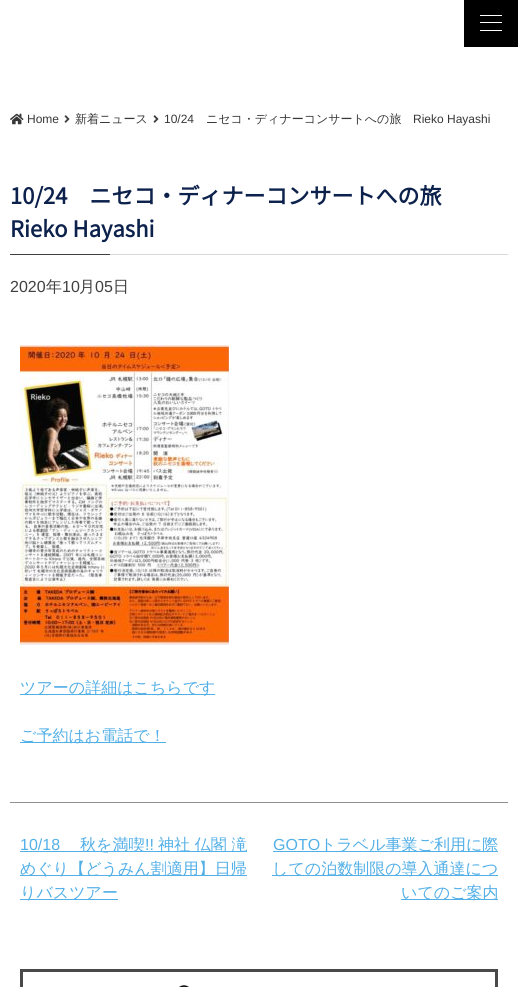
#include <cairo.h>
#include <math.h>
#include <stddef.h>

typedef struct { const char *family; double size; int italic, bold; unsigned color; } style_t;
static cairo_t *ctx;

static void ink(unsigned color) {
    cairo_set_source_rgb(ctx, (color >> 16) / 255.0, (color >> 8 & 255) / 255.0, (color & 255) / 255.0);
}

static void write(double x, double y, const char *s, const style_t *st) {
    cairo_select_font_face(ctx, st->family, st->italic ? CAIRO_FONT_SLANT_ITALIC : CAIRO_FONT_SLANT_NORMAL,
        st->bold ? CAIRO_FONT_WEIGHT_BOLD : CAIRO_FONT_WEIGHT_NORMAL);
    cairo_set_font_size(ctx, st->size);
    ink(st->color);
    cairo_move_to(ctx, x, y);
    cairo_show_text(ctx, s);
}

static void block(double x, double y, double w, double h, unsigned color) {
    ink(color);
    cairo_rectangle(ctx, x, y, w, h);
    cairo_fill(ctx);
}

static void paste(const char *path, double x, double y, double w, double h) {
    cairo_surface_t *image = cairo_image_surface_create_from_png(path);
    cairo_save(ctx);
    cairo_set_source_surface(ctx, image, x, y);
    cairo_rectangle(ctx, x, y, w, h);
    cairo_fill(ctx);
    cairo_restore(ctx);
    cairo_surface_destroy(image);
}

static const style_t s1 = {"Liberation Sans", 12, 0, 0, 0x373737};
static const style_t s2 = {"WenQuanYi Zen Hei Medium", 12, 0, 0, 0x373737};
static const style_t s3 = {"Noto Sans JP", 22, 0, 1, 0x0c214b};
static const style_t s4 = {"Liberation Sans", 16, 0, 0, 0x404040};
static const style_t s5 = {"WenQuanYi Zen Hei Medium", 16, 0, 0, 0x404040};
static const style_t s6 = {"WenQuanYi Zen Hei Medium", 16, 0, 0, 0x52afe7};
static const style_t s7 = {"Liberation Sans", 16, 0, 0, 0x52afe7};

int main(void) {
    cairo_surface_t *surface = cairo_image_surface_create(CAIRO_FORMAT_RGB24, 518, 987);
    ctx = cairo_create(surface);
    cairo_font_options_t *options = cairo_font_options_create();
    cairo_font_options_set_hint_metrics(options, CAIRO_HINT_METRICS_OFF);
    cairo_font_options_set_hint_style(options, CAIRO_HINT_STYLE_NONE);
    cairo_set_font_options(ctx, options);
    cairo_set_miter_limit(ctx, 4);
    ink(0xffffff);
    cairo_paint(ctx);
    block(464, 0, 54, 47, 0x000000);
    block(480, 22, 22, 1, 0xffffff);
    block(480, 15, 22, 1, 0xffffff);
    block(480, 30, 22, 1, 0xffffff);
    paste("pic1.png", 10, 113, 14, 12);
    write(27, 123, "Home", &s1);
    paste("pic2.png", 64, 115, 6, 8);
    write(75, 123, "新着ニュース", &s2);
    paste("pic2.png", 153, 115, 6, 8);
    write(164, 123, "10/24", &s1);
    write(206, 123, "ニセコ・ディナーコンサートへの旅", &s2);
    write(413, 123, "Rieko Hayashi", &s1);
    block(10, 802, 498, 1, 0x909090);
    block(110, 254, 398, 1, 0xd8d8d8);
    write(10, 204, "10/24　ニセコ・ディナーコンサートへの旅", &s3);
    write(10, 237, "Rieko Hayashi", &s3);
    block(10, 254, 100, 1, 0x404040);
    write(10, 292, "2020", &s4);
    write(46, 292, "年", &s5);
    write(62, 292, "10", &s4);
    write(79, 292, "月", &s5);
    write(95, 292, "05", &s4);
    write(113, 292, "日", &s5);
    paste("pic3.png", 20, 345, 209, 300);
    block(20, 694, 195, 1, 0x52afe7);
    write(20, 693, "ツアーの詳細はこちらです", &s6);
    block(20, 742, 146, 1, 0x52afe7);
    write(20, 741, "ご予約はお電話で！", &s6);
    write(20, 850, "10/18", &s7);
    block(20, 851, 227, 1, 0x52afe7);
    write(80, 850, "秋を満喫", &s6);
    write(145, 850, "!!", &s7);
    write(158, 850, "神社 仏閣 滝", &s6);
    block(20, 875, 227, 1, 0x52afe7);
    write(20, 874, "めぐり【どうみん割適用】日帰", &s6);
    block(20, 899, 98, 1, 0x52afe7);
    write(20, 898, "りバスツアー", &s6);
    write(273, 850, "GOTO", &s7);
    block(273, 851, 225, 1, 0x52afe7);
    write(320, 850, "トラベル事業ご利用に際", &s6);
    block(272, 875, 226, 1, 0x52afe7);
    write(272, 874, "しての泊数制限の導入通達につ", &s6);
    block(401, 899, 97, 1, 0x52afe7);
    write(401, 898, "いてのご案内", &s6);
    cairo_rectangle(ctx, 21.5, 970.5, 475, 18);
    ink(0x494949);
    cairo_set_line_width(ctx, 3);
    cairo_stroke(ctx);
    paste("pic4.png", 179, 985, 10, 2);
    cairo_surface_write_to_png(surface, "screenshot.png");
    cairo_font_options_destroy(options);
    cairo_destroy(ctx);
    cairo_surface_destroy(surface);
    return 0;
}
